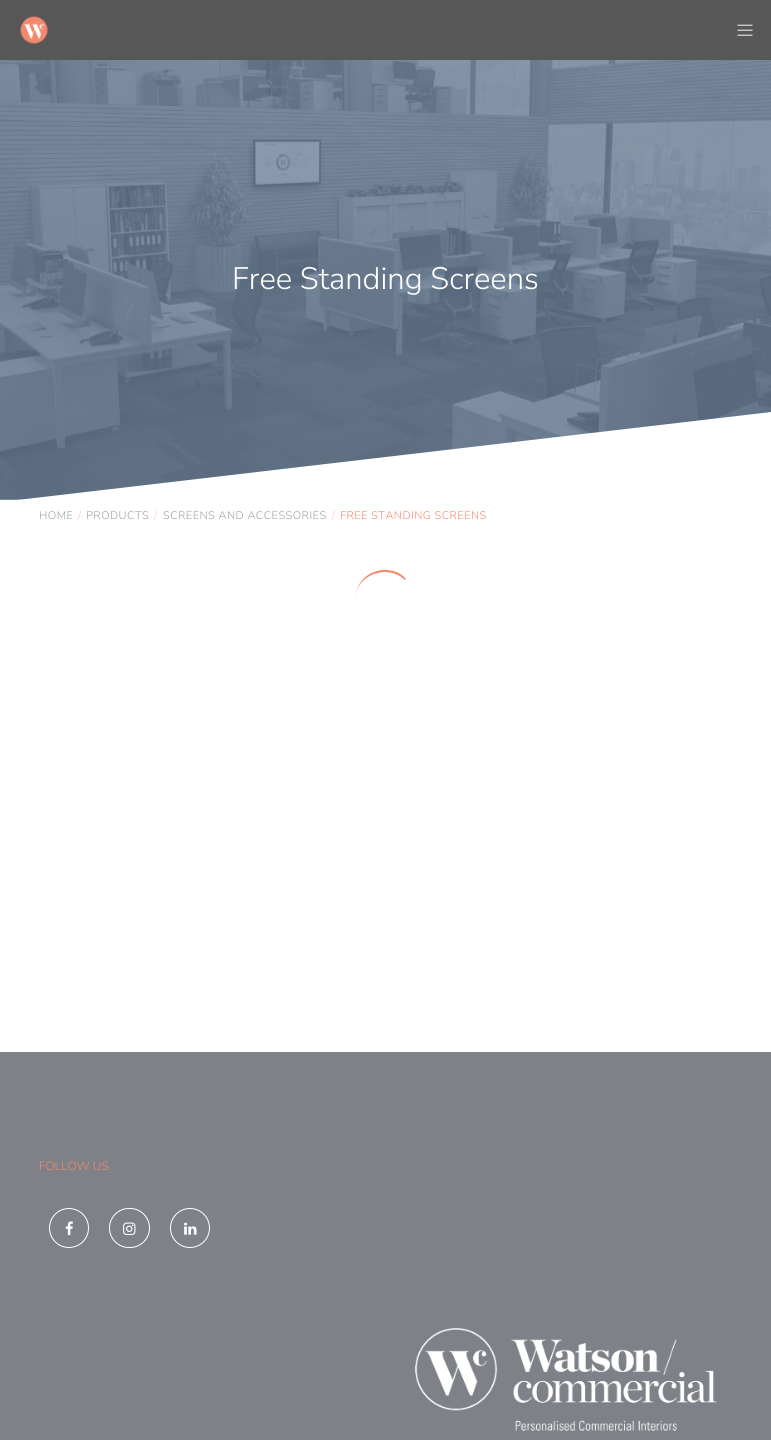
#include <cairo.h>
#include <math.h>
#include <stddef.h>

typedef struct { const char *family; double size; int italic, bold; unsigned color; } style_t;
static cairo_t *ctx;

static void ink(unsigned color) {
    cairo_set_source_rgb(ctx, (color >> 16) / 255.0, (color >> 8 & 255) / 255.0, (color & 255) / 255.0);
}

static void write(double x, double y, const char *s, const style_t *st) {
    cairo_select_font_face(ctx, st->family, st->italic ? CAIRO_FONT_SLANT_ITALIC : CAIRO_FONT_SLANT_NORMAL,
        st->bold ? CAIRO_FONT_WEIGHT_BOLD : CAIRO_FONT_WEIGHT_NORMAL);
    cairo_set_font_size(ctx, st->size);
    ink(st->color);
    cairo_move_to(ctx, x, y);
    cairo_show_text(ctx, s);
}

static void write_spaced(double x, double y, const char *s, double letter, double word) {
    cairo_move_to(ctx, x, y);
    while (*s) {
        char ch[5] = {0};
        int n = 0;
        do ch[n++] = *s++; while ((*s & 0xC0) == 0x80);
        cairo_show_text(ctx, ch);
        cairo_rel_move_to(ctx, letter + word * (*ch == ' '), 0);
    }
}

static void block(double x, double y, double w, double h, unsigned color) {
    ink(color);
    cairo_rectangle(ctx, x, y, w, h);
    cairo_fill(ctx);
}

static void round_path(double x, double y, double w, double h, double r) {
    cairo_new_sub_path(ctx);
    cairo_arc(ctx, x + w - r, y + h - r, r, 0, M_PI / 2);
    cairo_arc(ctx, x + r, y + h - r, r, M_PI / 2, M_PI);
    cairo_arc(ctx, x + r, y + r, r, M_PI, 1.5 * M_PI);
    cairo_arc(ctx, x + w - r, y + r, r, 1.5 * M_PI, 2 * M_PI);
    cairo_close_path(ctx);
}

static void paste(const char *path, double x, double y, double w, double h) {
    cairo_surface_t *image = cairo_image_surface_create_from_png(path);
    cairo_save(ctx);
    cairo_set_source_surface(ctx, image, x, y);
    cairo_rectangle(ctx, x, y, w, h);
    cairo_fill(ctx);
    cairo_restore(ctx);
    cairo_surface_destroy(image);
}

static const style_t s1 = {"Nunito Sans Light", 31, 0, 0, 0xffffff};
static const style_t s2 = {"Nunito Sans Light", 12, 0, 0, 0xf5886c};

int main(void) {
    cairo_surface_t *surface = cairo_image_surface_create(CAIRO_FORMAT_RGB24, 771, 1440);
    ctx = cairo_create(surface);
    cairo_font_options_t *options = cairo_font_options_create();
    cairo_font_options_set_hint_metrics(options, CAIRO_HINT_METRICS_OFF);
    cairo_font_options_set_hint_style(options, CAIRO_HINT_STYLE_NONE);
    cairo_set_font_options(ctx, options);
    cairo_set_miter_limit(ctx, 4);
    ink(0xffffff);
    cairo_paint(ctx);
    block(0, 0, 771, 60, 0x575757);
    paste("pic1.png", 20, 16, 28, 28);
    paste("pic2.png", 737, 24, 16, 12);
    paste("pic3.png", 0, 60, 771, 440);
    write(232, 289, "Free Standing Screens", &s1);
    cairo_new_path(ctx);
    cairo_move_to(ctx, 771, 502);
    cairo_line_to(ctx, 0, 502);
    cairo_line_to(ctx, 771, 412);
    cairo_close_path(ctx);
    cairo_fill(ctx);
    cairo_set_font_size(ctx, 11);
    ink(0x9f9f9f);
    write_spaced(39, 519, "HOME", 0.5, 0);
    ink(0xfac4b6);
    write_spaced(78, 519, "/", 0.5, 0);
    ink(0x9f9f9f);
    write_spaced(86, 519, "PRODUCTS", 0.5, 0);
    ink(0xfac4b6);
    write_spaced(154, 519, "/", 0.5, 0);
    ink(0x9f9f9f);
    write_spaced(163, 519, "SCREENS AND ACCESSORIES", 0.5, 0);
    ink(0xfac4b6);
    write_spaced(332, 519, "/", 0.5, 0);
    ink(0xf5886c);
    write_spaced(340, 519, "FREE STANDING SCREENS", 0.5, 0);
    cairo_new_path(ctx);
    cairo_move_to(ctx, 385, 570);
    cairo_curve_to(ctx, 368, 570, 355, 583, 355, 600);
    cairo_curve_to(ctx, 355, 575, 387, 563, 405, 580);
    cairo_line_to(ctx, 406, 579);
    cairo_curve_to(ctx, 401, 573, 394, 570, 385, 570);
    cairo_close_path(ctx);
    cairo_fill(ctx);
    block(0, 1052, 771, 388, 0x7e8187);
    write(39, 1170, "FOLLOW US", &s2);
    cairo_new_path(ctx);
    cairo_arc(ctx, 69, 1228, 19.5, 0, 2 * M_PI);
    ink(0xffffff);
    cairo_set_line_width(ctx, 1);
    cairo_stroke(ctx);
    paste("pic4.png", 65, 1221, 8, 15);
    round_path(109.5, 1208.5, 40, 39, 19.5);
    cairo_stroke(ctx);
    paste("pic5.png", 123, 1222, 13, 14);
    cairo_arc(ctx, 190, 1228, 19.5, 0, 2 * M_PI);
    cairo_stroke(ctx);
    paste("pic6.png", 184, 1222, 13, 13);
    paste("pic7.png", 415, 1328, 302, 103);
    cairo_surface_write_to_png(surface, "screenshot.png");
    cairo_font_options_destroy(options);
    cairo_destroy(ctx);
    cairo_surface_destroy(surface);
    return 0;
}
